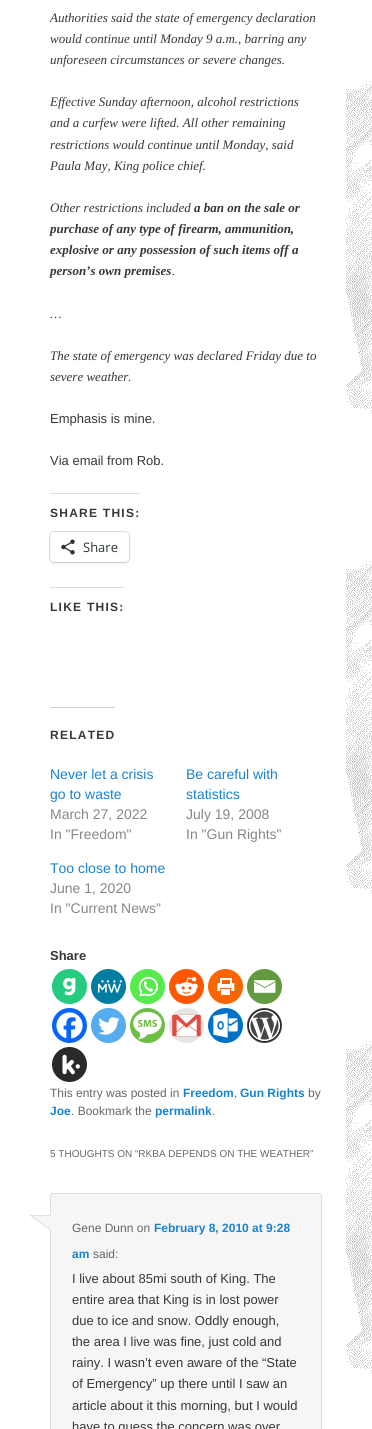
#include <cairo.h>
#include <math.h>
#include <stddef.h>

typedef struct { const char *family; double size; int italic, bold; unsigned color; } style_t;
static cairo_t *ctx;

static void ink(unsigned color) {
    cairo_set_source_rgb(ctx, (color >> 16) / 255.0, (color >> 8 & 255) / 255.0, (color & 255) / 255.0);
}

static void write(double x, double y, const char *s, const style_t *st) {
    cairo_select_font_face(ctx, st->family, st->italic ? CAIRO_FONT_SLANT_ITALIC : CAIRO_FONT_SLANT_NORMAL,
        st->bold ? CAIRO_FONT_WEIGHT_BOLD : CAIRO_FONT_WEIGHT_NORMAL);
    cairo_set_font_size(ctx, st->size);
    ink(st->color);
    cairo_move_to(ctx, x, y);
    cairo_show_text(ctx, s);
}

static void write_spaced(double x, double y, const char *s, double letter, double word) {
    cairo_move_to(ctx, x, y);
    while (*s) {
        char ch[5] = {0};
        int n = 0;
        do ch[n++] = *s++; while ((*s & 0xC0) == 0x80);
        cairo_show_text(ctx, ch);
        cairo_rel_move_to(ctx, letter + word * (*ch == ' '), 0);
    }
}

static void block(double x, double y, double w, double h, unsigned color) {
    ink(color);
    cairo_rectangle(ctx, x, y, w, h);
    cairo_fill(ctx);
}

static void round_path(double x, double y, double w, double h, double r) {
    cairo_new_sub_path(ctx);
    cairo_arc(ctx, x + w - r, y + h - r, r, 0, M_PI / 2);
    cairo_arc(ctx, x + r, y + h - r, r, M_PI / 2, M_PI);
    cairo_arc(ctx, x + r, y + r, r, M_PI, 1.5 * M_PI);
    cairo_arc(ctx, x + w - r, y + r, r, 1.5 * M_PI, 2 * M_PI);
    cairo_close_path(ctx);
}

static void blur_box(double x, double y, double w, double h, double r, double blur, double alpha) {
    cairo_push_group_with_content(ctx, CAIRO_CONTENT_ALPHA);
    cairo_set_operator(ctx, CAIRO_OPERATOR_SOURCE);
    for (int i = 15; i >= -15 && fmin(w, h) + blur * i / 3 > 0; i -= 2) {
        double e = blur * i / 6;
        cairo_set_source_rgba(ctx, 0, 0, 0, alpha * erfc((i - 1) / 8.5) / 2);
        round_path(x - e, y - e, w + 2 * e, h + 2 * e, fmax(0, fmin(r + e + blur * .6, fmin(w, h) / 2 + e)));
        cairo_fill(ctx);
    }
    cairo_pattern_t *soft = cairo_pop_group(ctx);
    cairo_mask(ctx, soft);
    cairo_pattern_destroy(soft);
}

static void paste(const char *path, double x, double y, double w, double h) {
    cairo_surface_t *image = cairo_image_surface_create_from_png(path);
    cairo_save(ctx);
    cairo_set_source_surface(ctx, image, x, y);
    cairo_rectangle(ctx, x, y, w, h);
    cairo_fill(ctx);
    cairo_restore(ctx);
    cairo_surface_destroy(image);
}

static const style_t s1 = {"Liberation Serif", 13, 1, 0, 0x373737};
static const style_t s2 = {"Liberation Serif", 13, 1, 1, 0x373737};
static const style_t s3 = {"Liberation Sans", 13, 0, 0, 0x373737};
static const style_t s4 = {"Open Sans", 13, 0, 0, 0x2c3338};
static const style_t s5 = {"Liberation Sans", 14, 0, 0, 0x1982d1};
static const style_t s6 = {"Liberation Sans", 14, 0, 0, 0x878787};
static const style_t s7 = {"Liberation Sans", 13, 0, 1, 0x373737};
static const style_t s8 = {"Liberation Sans", 12, 0, 0, 0x666666};
static const style_t s9 = {"Liberation Sans", 12, 0, 1, 0x1982d1};
static const style_t s10 = {"Liberation Sans", 10, 0, 0, 0x666666};

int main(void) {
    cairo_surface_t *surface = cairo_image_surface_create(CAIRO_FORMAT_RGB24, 372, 1429);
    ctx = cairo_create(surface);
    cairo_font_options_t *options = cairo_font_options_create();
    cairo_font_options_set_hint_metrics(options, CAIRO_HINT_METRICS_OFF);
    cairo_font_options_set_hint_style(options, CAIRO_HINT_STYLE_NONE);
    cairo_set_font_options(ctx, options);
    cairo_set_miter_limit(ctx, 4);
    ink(0xffffff);
    cairo_paint(ctx);
    paste("pic1.png", 0, 0, 372, 1429);
    block(46, 71, 300, 1279, 0xffffff);
    write(50, 22, "Authorities said the state of emergency declaration", &s1);
    write(50, 43, "would continue until Monday 9 a.m., barring any", &s1);
    write(50, 64, "unforeseen circumstances or severe changes.", &s1);
    write(50, 106, "Effective Sunday afternoon, alcohol restrictions", &s1);
    write(50, 127, "and a curfew were lifted. All other remaining", &s1);
    write(50, 149, "restrictions would continue until Monday, said", &s1);
    write(50, 170, "Paula May, King police chief.", &s1);
    write(50, 212, "Other restrictions included", &s1);
    write(194, 212, "a ban on the sale or", &s2);
    write(50, 233, "purchase of any type of firearm, ammunition,", &s2);
    write(50, 254, "explosive or any possession of such items off a", &s2);
    write(50, 275, "person’s own premises", &s2);
    write(172, 275, ".", &s1);
    write(50, 318, "…", &s1);
    write(50, 360, "The state of emergency was declared Friday due to", &s1);
    write(50, 381, "severe weather.", &s1);
    write(50, 423, "Emphasis is mine.", &s3);
    write(50, 465, "Via email from Rob.", &s3);
    block(50, 493, 90, 1, 0xdcdcde);
    cairo_select_font_face(ctx, "Liberation Sans", CAIRO_FONT_SLANT_NORMAL, CAIRO_FONT_WEIGHT_BOLD);
    cairo_set_font_size(ctx, 12);
    ink(0x373737);
    write_spaced(50, 517, "SHARE THIS:", 1.25, 0);
    round_path(49.5, 531.5, 80, 31, 4.5);
    ink(0xe0e0e0);
    cairo_set_line_width(ctx, 1);
    cairo_stroke(ctx);
    ink(0x000000);
    blur_box(50, 533, 79, 30, 4, 1, 0.12);
    ink(0xffffff);
    round_path(50, 532, 79, 30, 4);
    cairo_fill(ctx);
    paste("pic2.png", 61, 539, 14, 16);
    write(83, 552, "Share", &s4);
    block(50, 587, 74, 1, 0xdcdcde);
    cairo_select_font_face(ctx, "Liberation Sans", CAIRO_FONT_SLANT_NORMAL, CAIRO_FONT_WEIGHT_BOLD);
    cairo_set_font_size(ctx, 12);
    ink(0x373737);
    write_spaced(50, 611, "LIKE THIS:", 1.25, 0);
    block(50, 707, 65, 1, 0xcccccc);
    ink(0x373737);
    write_spaced(50, 739, "RELATED", 1.25, 0);
    write(50, 779, "Never let a crisis", &s5);
    write(50, 799, "go to waste", &s5);
    write(50, 819, "March 27, 2022", &s6);
    write(50, 839, "In \"Freedom\"", &s6);
    write(186, 779, "Be careful with", &s5);
    write(186, 799, "statistics", &s5);
    write(186, 819, "July 19, 2008", &s6);
    write(186, 839, "In \"Gun Rights\"", &s6);
    write(50, 873, "Too close to home", &s5);
    write(50, 893, "June 1, 2020", &s6);
    write(50, 913, "In \"Current News\"", &s6);
    write(50, 960, "Share", &s7);
    ink(0x25cc80);
    cairo_new_path(ctx);
    cairo_arc(ctx, 69.5, 986.5, 17.5, 0, 2 * M_PI);
    cairo_fill(ctx);
    paste("pic3.png", 63, 977, 13, 19);
    ink(0x007da1);
    cairo_arc(ctx, 108.5, 986.5, 17.5, 0, 2 * M_PI);
    cairo_fill(ctx);
    paste("pic4.png", 98, 980, 24, 13);
    ink(0x55eb4c);
    cairo_arc(ctx, 147.5, 986.5, 17.5, 0, 2 * M_PI);
    cairo_fill(ctx);
    paste("pic5.png", 138, 976, 20, 21);
    ink(0xff5700);
    cairo_arc(ctx, 186.5, 986.5, 17.5, 0, 2 * M_PI);
    cairo_fill(ctx);
    paste("pic6.png", 175, 977, 23, 19);
    ink(0xfd6500);
    cairo_arc(ctx, 225.5, 986.5, 17.5, 0, 2 * M_PI);
    cairo_fill(ctx);
    paste("pic7.png", 217, 978, 18, 17);
    ink(0x649a3f);
    cairo_arc(ctx, 264.5, 986.5, 17.5, 0, 2 * M_PI);
    cairo_fill(ctx);
    paste("pic8.png", 254, 980, 22, 13);
    ink(0x0765fe);
    cairo_arc(ctx, 69.5, 1025.5, 17.5, 0, 2 * M_PI);
    cairo_fill(ctx);
    paste("pic9.png", 56, 1012, 27, 27);
    ink(0x55acee);
    cairo_arc(ctx, 108.5, 1025.5, 17.5, 0, 2 * M_PI);
    cairo_fill(ctx);
    paste("pic10.png", 98, 1017, 22, 18);
    ink(0x6ebe45);
    cairo_arc(ctx, 147.5, 1025.5, 17.5, 0, 2 * M_PI);
    cairo_fill(ctx);
    paste("pic11.png", 133, 1011, 29, 29);
    ink(0xe5e5e5);
    cairo_arc(ctx, 186.5, 1025.5, 17.5, 0, 2 * M_PI);
    cairo_fill(ctx);
    paste("pic12.png", 172, 1014, 29, 23);
    ink(0x0072c6);
    cairo_arc(ctx, 225.5, 1025.5, 17.5, 0, 2 * M_PI);
    cairo_fill(ctx);
    paste("pic13.png", 213, 1013, 25, 25);
    ink(0x464646);
    cairo_arc(ctx, 264.5, 1025.5, 17.5, 0, 2 * M_PI);
    cairo_fill(ctx);
    paste("pic14.png", 248, 1009, 33, 33);
    ink(0x2a2a2a);
    cairo_arc(ctx, 69.5, 1064.5, 17.5, 0, 2 * M_PI);
    cairo_fill(ctx);
    paste("pic15.png", 62, 1054, 18, 21);
    write(50, 1097, "This entry was posted in", &s8);
    write(183, 1097, "Freedom", &s9);
    write(234, 1097, ",", &s8);
    write(240, 1097, "Gun Rights", &s9);
    write(308, 1097, "by", &s8);
    write(50, 1115, "Joe", &s9);
    write(71, 1115, ". Bookmark the", &s8);
    write(155, 1115, "permalink", &s9);
    write(212, 1115, ".", &s8);
    write(50, 1157, "5 THOUGHTS ON “RKBA DEPENDS ON THE WEATHER”", &s10);
    ink(0xf6f6f6);
    round_path(50.5, 1193.5, 271, 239, 2.5);
    cairo_fill_preserve(ctx);
    ink(0xdddddd);
    cairo_stroke(ctx);
    paste("pic16.png", 30, 1215, 21, 15);
    write(72, 1232, "Gene Dunn on", &s8);
    write(154, 1232, "February 8, 2010 at 9:28", &s9);
    write(72, 1258, "am", &s9);
    write(93, 1258, "said:", &s8);
    write(72, 1283, "I live about 85mi south of King. The", &s3);
    write(72, 1304, "entire area that King is in lost power", &s3);
    write(72, 1325, "due to ice and snow. Oddly enough,", &s3);
    write(72, 1346, "the area I live was fine, just cold and", &s3);
    write(72, 1367, "rainy. I wasn’t even aware of the “State", &s3);
    write(72, 1388, "of Emergency” up there until I saw an", &s3);
    write(72, 1410, "article about it this morning, but I would", &s3);
    write(72, 1431, "have to guess the concern was over", &s3);
    cairo_surface_write_to_png(surface, "screenshot.png");
    cairo_font_options_destroy(options);
    cairo_destroy(ctx);
    cairo_surface_destroy(surface);
    return 0;
}
